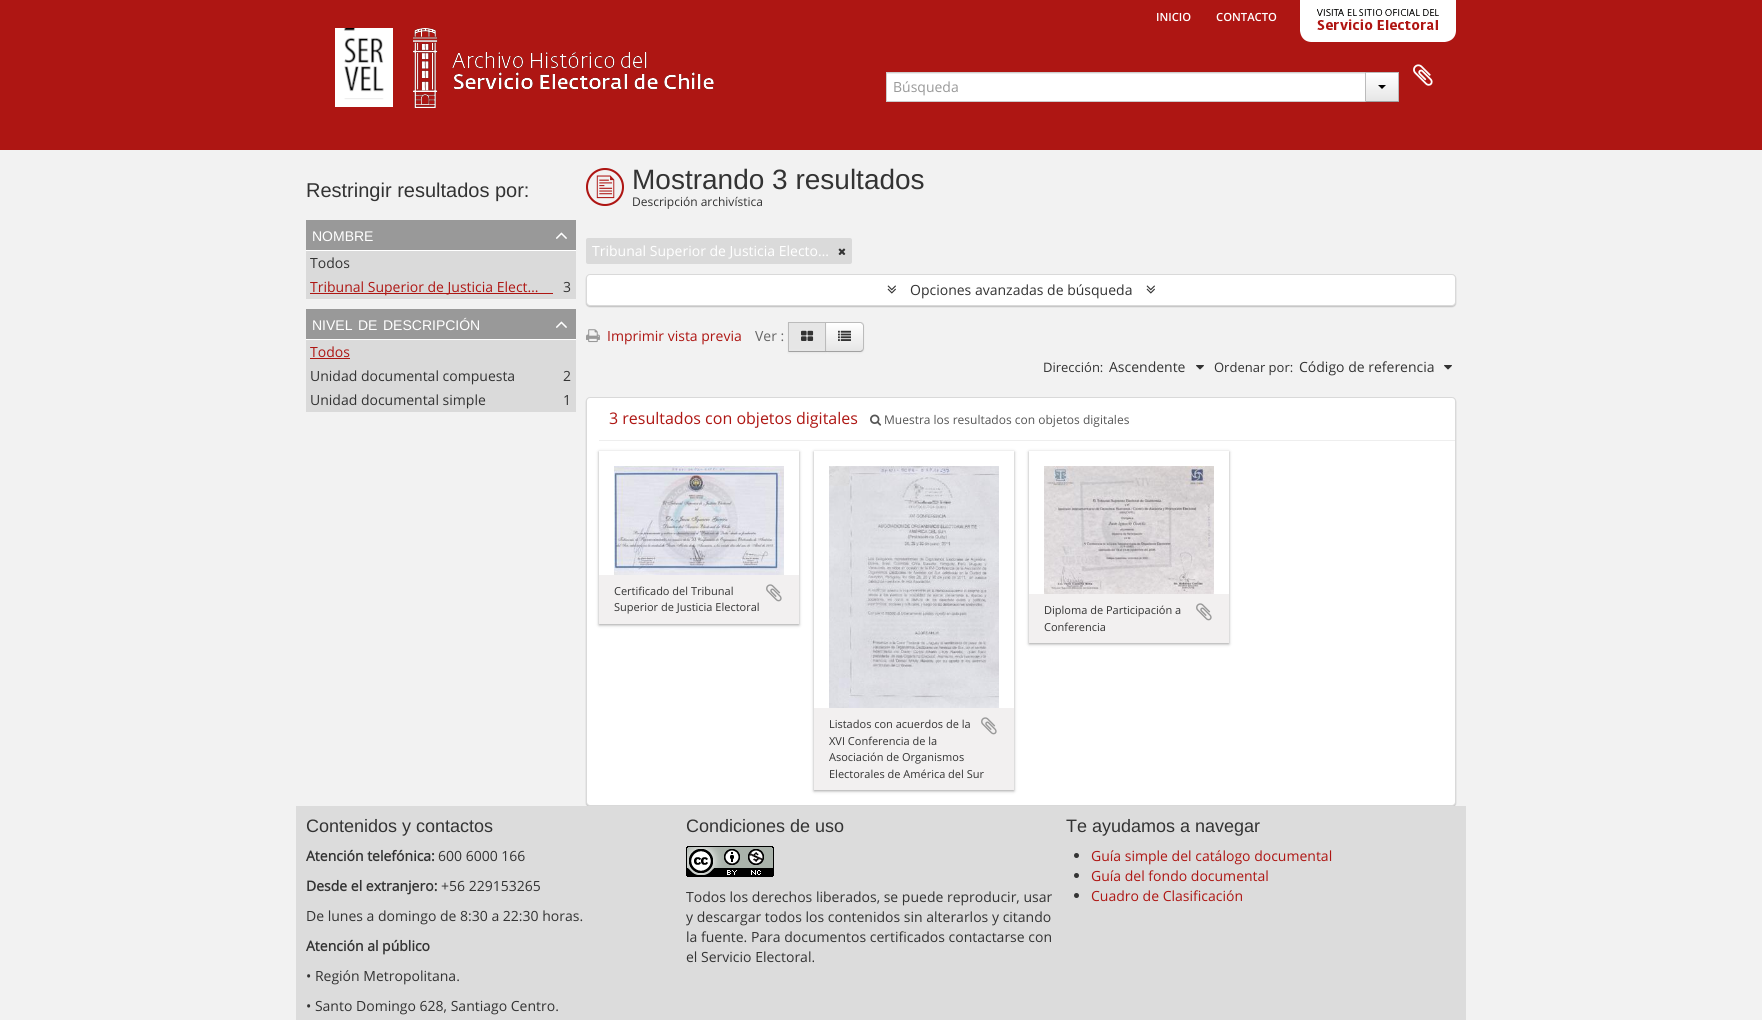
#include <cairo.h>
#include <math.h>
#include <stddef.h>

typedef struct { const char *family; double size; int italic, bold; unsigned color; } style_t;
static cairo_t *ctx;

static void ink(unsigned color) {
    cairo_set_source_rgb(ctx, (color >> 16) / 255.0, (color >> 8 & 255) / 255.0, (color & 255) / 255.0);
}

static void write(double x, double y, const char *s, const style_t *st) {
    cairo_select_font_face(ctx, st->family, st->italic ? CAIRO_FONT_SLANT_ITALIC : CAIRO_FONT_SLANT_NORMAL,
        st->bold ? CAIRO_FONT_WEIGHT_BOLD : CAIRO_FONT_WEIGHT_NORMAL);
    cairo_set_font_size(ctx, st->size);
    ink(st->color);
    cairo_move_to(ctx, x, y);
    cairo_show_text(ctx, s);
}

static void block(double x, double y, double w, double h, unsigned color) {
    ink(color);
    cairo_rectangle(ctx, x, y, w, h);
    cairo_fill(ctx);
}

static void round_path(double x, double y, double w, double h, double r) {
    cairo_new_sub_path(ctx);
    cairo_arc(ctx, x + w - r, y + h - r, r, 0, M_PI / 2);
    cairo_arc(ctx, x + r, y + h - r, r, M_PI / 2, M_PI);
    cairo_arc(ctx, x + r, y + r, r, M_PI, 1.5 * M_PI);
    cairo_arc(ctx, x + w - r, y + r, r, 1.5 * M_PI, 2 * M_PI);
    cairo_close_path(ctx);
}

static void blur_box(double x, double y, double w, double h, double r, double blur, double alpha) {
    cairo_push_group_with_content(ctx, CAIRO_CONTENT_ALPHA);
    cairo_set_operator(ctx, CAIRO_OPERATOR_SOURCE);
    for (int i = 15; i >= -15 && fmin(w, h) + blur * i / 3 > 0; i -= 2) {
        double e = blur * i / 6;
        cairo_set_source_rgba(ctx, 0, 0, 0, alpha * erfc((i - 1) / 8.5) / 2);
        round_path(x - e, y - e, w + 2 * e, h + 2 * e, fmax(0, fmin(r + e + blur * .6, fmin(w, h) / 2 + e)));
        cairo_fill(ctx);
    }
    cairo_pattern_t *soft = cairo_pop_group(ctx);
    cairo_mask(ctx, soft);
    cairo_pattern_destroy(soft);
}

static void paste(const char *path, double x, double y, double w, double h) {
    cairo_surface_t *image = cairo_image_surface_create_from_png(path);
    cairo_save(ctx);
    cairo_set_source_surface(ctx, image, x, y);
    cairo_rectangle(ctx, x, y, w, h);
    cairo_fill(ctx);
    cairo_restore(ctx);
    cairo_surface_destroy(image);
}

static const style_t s1 = {"Open Sans SemiBold", 11.25, 0, 0, 0xffffff};
static const style_t s2 = {"Open Sans", 14, 0, 0, 0x999999};
static const style_t s3 = {"Liberation Sans", 20, 0, 0, 0x333333};
static const style_t s4 = {"Liberation Sans", 14, 0, 0, 0xffffff};
static const style_t s5 = {"Open Sans", 14, 0, 0, 0x333333};
static const style_t s6 = {"Open Sans", 14, 0, 0, 0xae1613};
static const style_t s7 = {"Liberation Sans", 28, 0, 0, 0x333333};
static const style_t s8 = {"Open Sans", 12, 0, 0, 0x333333};
static const style_t s9 = {"Open Sans", 14, 0, 0, 0xffffff};
static const style_t s10 = {"Open Sans", 14, 0, 0, 0x666666};
static const style_t s11 = {"Open Sans", 13, 0, 0, 0x333333};
static const style_t s12 = {"Open Sans", 16, 0, 0, 0xae1613};
static const style_t s13 = {"Open Sans", 12, 0, 0, 0x555555};
static const style_t s14 = {"Open Sans", 11, 0, 0, 0x333333};
static const style_t s15 = {"Liberation Sans", 18, 0, 0, 0x333333};
static const style_t s16 = {"Open Sans", 14, 0, 1, 0x333333};

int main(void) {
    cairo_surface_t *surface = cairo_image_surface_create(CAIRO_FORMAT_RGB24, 1762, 1020);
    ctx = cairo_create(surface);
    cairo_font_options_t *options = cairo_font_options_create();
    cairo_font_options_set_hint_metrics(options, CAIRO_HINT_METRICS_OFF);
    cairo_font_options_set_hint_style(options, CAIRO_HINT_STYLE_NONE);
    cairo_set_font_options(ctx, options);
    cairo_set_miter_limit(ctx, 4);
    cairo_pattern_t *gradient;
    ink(0xf2f2f2);
    cairo_paint(ctx);
    block(0, 0, 1762, 150, 0xae1613);
    write(1156, 21, "INICIO", &s1);
    write(1216, 21, "CONTACTO", &s1);
    paste("pic1.png", 1300, 0, 156, 42);
    paste("pic2.png", 335, 28, 379, 80);
    paste("pic3.png", 1413, 64, 20, 22);
    block(887, 74, 478, 27, 0xffffff);
    block(887, 73, 478, 1, 0xececec);
    cairo_rectangle(ctx, 886.5, 72.5, 479, 29);
    ink(0xcccccc);
    cairo_set_line_width(ctx, 1);
    cairo_stroke(ctx);
    write(893, 92, "Búsqueda", &s2);
    gradient = cairo_pattern_create_linear(1382, 73, 1382, 101);
    cairo_pattern_add_color_stop_rgba(gradient, 0, 1, 1, 1, 1);
    cairo_pattern_add_color_stop_rgba(gradient, 1, 0.902, 0.902, 0.902, 1);
    cairo_set_source(ctx, gradient);
    cairo_pattern_destroy(gradient);
    cairo_rectangle(ctx, 1366, 73, 32, 28);
    cairo_fill(ctx);
    block(1365, 72, 34, 1, 0xbbbbbb);
    block(1398, 72, 1, 30, 0xbbbbbb);
    block(1365, 101, 34, 1, 0xa2a2a2);
    block(1365, 72, 1, 30, 0xbbbbbb);
    ink(0x000000);
    cairo_new_path(ctx);
    cairo_move_to(ctx, 1378, 85);
    cairo_line_to(ctx, 1386, 85);
    cairo_line_to(ctx, 1382, 89);
    cairo_close_path(ctx);
    cairo_fill(ctx);
    write(306, 197, "Restringir resultados por:", &s3);
    block(306, 250, 270, 1, 0xffffff);
    block(306, 220, 270, 30, 0x999999);
    write(312, 241, "NOMBRE", &s4);
    paste("pic4.png", 556, 232, 11, 7);
    block(306, 251, 270, 48, 0xdadada);
    write(310, 268, "Todos", &s5);
    block(310, 293, 243, 1, 0xae1613);
    write(310, 292, "Tribunal Superior de Justicia Elect…", &s6);
    write(563, 292, "3", &s5);
    block(306, 339, 270, 1, 0xffffff);
    block(306, 309, 270, 30, 0x999999);
    write(312, 330, "NIVEL", &s4);
    write(358, 330, "DE", &s4);
    write(383, 330, "DESCRIPCIÓN", &s4);
    paste("pic4.png", 556, 321, 11, 7);
    block(306, 340, 270, 72, 0xdadada);
    write(310, 357, "Todos", &s6);
    block(310, 358, 40, 1, 0xae1613);
    write(310, 381, "Unidad documental compuesta", &s5);
    write(563, 381, "2", &s5);
    write(310, 405, "Unidad documental simple", &s5);
    write(563, 405, "1", &s5);
    paste("pic5.png", 586, 168, 38, 38);
    write(632, 189, "Mostrando 3 resultados", &s7);
    write(632, 206, "Descripción archivística", &s8);
    ink(0xdadada);
    round_path(586, 238, 266, 26, 2);
    cairo_fill(ctx);
    write(592, 256, "Tribunal Superior de Justicia Electo…", &s9);
    paste("pic6.png", 838, 248, 8, 7);
    ink(0x000000);
    blur_box(586, 275, 870, 32, 4, 0.5, 0.2);
    ink(0xffffff);
    round_path(586.5, 274.5, 869, 31, 3.5);
    cairo_fill_preserve(ctx);
    ink(0xd9d9d9);
    cairo_stroke(ctx);
    paste("pic7.png", 887, 285, 9, 9);
    write(910, 295, "Opciones avanzadas de búsqueda", &s5);
    paste("pic7.png", 1146, 285, 9, 9);
    paste("pic8.png", 586, 329, 14, 14);
    write(607, 341, "Imprimir vista previa", &s6);
    write(755, 341, "Ver :", &s10);
    ink(0x000000);
    blur_box(825, 323, 39, 30, 4, 1, 0.05);
    cairo_save(ctx);
    cairo_new_path(ctx);
    cairo_move_to(ctx, 825, 322);
    cairo_line_to(ctx, 860, 322);
    cairo_curve_to(ctx, 862, 322, 864, 324, 864, 326);
    cairo_line_to(ctx, 864, 348);
    cairo_curve_to(ctx, 864, 350, 862, 352, 860, 352);
    cairo_line_to(ctx, 825, 352);
    cairo_close_path(ctx);
    cairo_clip(ctx);
    gradient = cairo_pattern_create_linear(845, 323, 845, 351);
    cairo_pattern_add_color_stop_rgba(gradient, 0, 1, 1, 1, 1);
    cairo_pattern_add_color_stop_rgba(gradient, 1, 0.902, 0.902, 0.902, 1);
    cairo_set_source(ctx, gradient);
    cairo_pattern_destroy(gradient);
    cairo_rectangle(ctx, 826, 323, 38, 28);
    cairo_fill(ctx);
    cairo_restore(ctx);
    ink(0xbbbbbb);
    cairo_new_path(ctx);
    cairo_move_to(ctx, 825, 322);
    cairo_line_to(ctx, 826, 323);
    cairo_line_to(ctx, 860, 323);
    cairo_curve_to(ctx, 861, 323, 861.5, 323.5, 862, 324);
    cairo_line_to(ctx, 863, 323);
    cairo_curve_to(ctx, 862, 322.5, 861, 322, 860, 322);
    cairo_close_path(ctx);
    cairo_fill(ctx);
    cairo_new_path(ctx);
    cairo_move_to(ctx, 864, 348);
    cairo_line_to(ctx, 864, 326);
    cairo_curve_to(ctx, 864, 325, 863.5, 324, 863, 323);
    cairo_line_to(ctx, 862, 324);
    cairo_curve_to(ctx, 862.5, 324.5, 863, 325, 863, 326);
    cairo_line_to(ctx, 863, 348);
    cairo_curve_to(ctx, 863, 349, 862.5, 349.5, 862, 350);
    cairo_line_to(ctx, 863, 351);
    cairo_curve_to(ctx, 863.5, 350, 864, 349, 864, 348);
    cairo_close_path(ctx);
    cairo_fill(ctx);
    ink(0xa2a2a2);
    cairo_new_path(ctx);
    cairo_move_to(ctx, 860, 352);
    cairo_curve_to(ctx, 861, 352, 862, 351.5, 863, 351);
    cairo_line_to(ctx, 862, 350);
    cairo_curve_to(ctx, 861.5, 350.5, 861, 351, 860, 351);
    cairo_line_to(ctx, 826, 351);
    cairo_line_to(ctx, 825, 352);
    cairo_close_path(ctx);
    cairo_fill(ctx);
    ink(0x000000);
    blur_box(788, 323, 38, 30, 0, 1, 0.05);
    block(789, 323, 36, 26, 0xe6e6e6);
    block(788, 322, 38, 1, 0xbbbbbb);
    block(825, 322, 1, 30, 0xbbbbbb);
    block(788, 351, 38, 1, 0xa2a2a2);
    block(788, 322, 1, 30, 0xbbbbbb);
    paste("pic9.png", 801, 330, 13, 11);
    paste("pic10.png", 838, 330, 13, 11);
    write(1043, 372, "Dirección:", &s11);
    write(1109, 372, "Ascendente", &s5);
    paste("pic11.png", 1196, 365, 8, 5);
    write(1214, 372, "Ordenar por:", &s11);
    write(1299, 372, "Código de referencia", &s5);
    paste("pic11.png", 1444, 365, 8, 5);
    ink(0x000000);
    blur_box(586, 398, 870, 409, 4, 0.5, 0.2);
    ink(0xffffff);
    round_path(586.5, 397.5, 869, 408, 3.5);
    cairo_fill_preserve(ctx);
    ink(0xd9d9d9);
    cairo_stroke(ctx);
    block(599, 440, 856, 1, 0xeeeeee);
    write(609, 424, "3 resultados con objetos digitales", &s12);
    paste("pic12.png", 870, 414, 12, 12);
    write(884, 424, "Muestra los resultados con objetos digitales", &s13);
    cairo_save(ctx);
    cairo_set_fill_rule(ctx, CAIRO_FILL_RULE_EVEN_ODD);
    cairo_new_path(ctx);
    cairo_move_to(ctx, 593, 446);
    cairo_line_to(ctx, 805, 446);
    cairo_line_to(ctx, 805, 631);
    cairo_line_to(ctx, 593, 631);
    cairo_close_path(ctx);
    cairo_move_to(ctx, 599, 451);
    cairo_line_to(ctx, 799, 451);
    cairo_line_to(ctx, 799, 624);
    cairo_line_to(ctx, 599, 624);
    cairo_close_path(ctx);
    cairo_clip(ctx);
    ink(0x191919);
    blur_box(599, 452, 200, 173, 0, 1.5, 0.4);
    cairo_restore(ctx);
    paste("pic13.png", 614, 466, 170, 109);
    block(599, 575, 200, 49, 0xf2f0f0);
    write(614, 595, "Certificado del Tribunal", &s14);
    paste("pic14.png", 766, 584, 16, 18);
    write(614, 611, "Superior de Justicia Electoral", &s14);
    cairo_save(ctx);
    cairo_set_fill_rule(ctx, CAIRO_FILL_RULE_EVEN_ODD);
    cairo_new_path(ctx);
    cairo_move_to(ctx, 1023, 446);
    cairo_line_to(ctx, 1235, 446);
    cairo_line_to(ctx, 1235, 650);
    cairo_line_to(ctx, 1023, 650);
    cairo_close_path(ctx);
    cairo_move_to(ctx, 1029, 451);
    cairo_line_to(ctx, 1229, 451);
    cairo_line_to(ctx, 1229, 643);
    cairo_line_to(ctx, 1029, 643);
    cairo_close_path(ctx);
    cairo_clip(ctx);
    ink(0x191919);
    blur_box(1029, 452, 200, 192, 0, 1.5, 0.4);
    cairo_restore(ctx);
    paste("pic15.png", 1044, 466, 170, 128);
    block(1029, 594, 200, 49, 0xf2f0f0);
    write(1044, 614, "Diploma de Participación a", &s14);
    paste("pic14.png", 1196, 603, 16, 18);
    write(1044, 631, "Conferencia", &s14);
    cairo_save(ctx);
    cairo_set_fill_rule(ctx, CAIRO_FILL_RULE_EVEN_ODD);
    cairo_new_path(ctx);
    cairo_move_to(ctx, 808, 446);
    cairo_line_to(ctx, 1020, 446);
    cairo_line_to(ctx, 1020, 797);
    cairo_line_to(ctx, 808, 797);
    cairo_close_path(ctx);
    cairo_move_to(ctx, 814, 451);
    cairo_line_to(ctx, 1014, 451);
    cairo_line_to(ctx, 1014, 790);
    cairo_line_to(ctx, 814, 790);
    cairo_close_path(ctx);
    cairo_clip(ctx);
    ink(0x191919);
    blur_box(814, 452, 200, 339, 0, 1.5, 0.4);
    cairo_restore(ctx);
    paste("pic16.png", 829, 466, 170, 242);
    block(814, 708, 200, 82, 0xf2f0f0);
    write(829, 728, "Listados con acuerdos de la", &s14);
    paste("pic14.png", 981, 717, 16, 18);
    write(829, 745, "XVI Conferencia de la", &s14);
    write(829, 761, "Asociación de Organismos", &s14);
    write(829, 778, "Electorales de América del Sur", &s14);
    block(296, 806, 1170, 214, 0xdcdcdc);
    write(306, 832, "Contenidos y contactos", &s15);
    write(306, 861, "Atención telefónica:", &s16);
    write(438, 861, "600 6000 166", &s5);
    write(306, 891, "Desde el extranjero:", &s16);
    write(441, 891, "+56 229153265", &s5);
    write(306, 921, "De lunes a domingo de 8:30 a 22:30 horas.", &s5);
    write(306, 951, "Atención al público", &s16);
    write(306, 981, "• Región Metropolitana.", &s5);
    write(306, 1011, "• Santo Domingo 628, Santiago Centro.", &s5);
    write(686, 832, "Condiciones de uso", &s15);
    paste("pic17.png", 686, 846, 88, 31);
    write(686, 902, "Todos los derechos liberados, se puede reproducir, usar", &s5);
    write(686, 922, "y descargar todos los contenidos sin alterarlos y citando", &s5);
    write(686, 942, "la fuente. Para documentos certificados contactarse con", &s5);
    write(686, 962, "el Servicio Electoral.", &s5);
    write(1066, 832, "Te ayudamos a navegar", &s15);
    cairo_new_path(ctx);
    cairo_arc(ctx, 1076.5, 855.5, 2.5, 0, 2 * M_PI);
    cairo_fill(ctx);
    write(1091, 861, "Guía simple del catálogo documental", &s6);
    ink(0x333333);
    cairo_new_path(ctx);
    cairo_arc(ctx, 1076.5, 875.5, 2.5, 0, 2 * M_PI);
    cairo_fill(ctx);
    write(1091, 881, "Guía del fondo documental", &s6);
    ink(0x333333);
    cairo_new_path(ctx);
    cairo_arc(ctx, 1076.5, 895.5, 2.5, 0, 2 * M_PI);
    cairo_fill(ctx);
    write(1091, 901, "Cuadro de Clasificación", &s6);
    cairo_surface_write_to_png(surface, "screenshot.png");
    cairo_font_options_destroy(options);
    cairo_destroy(ctx);
    cairo_surface_destroy(surface);
    return 0;
}
